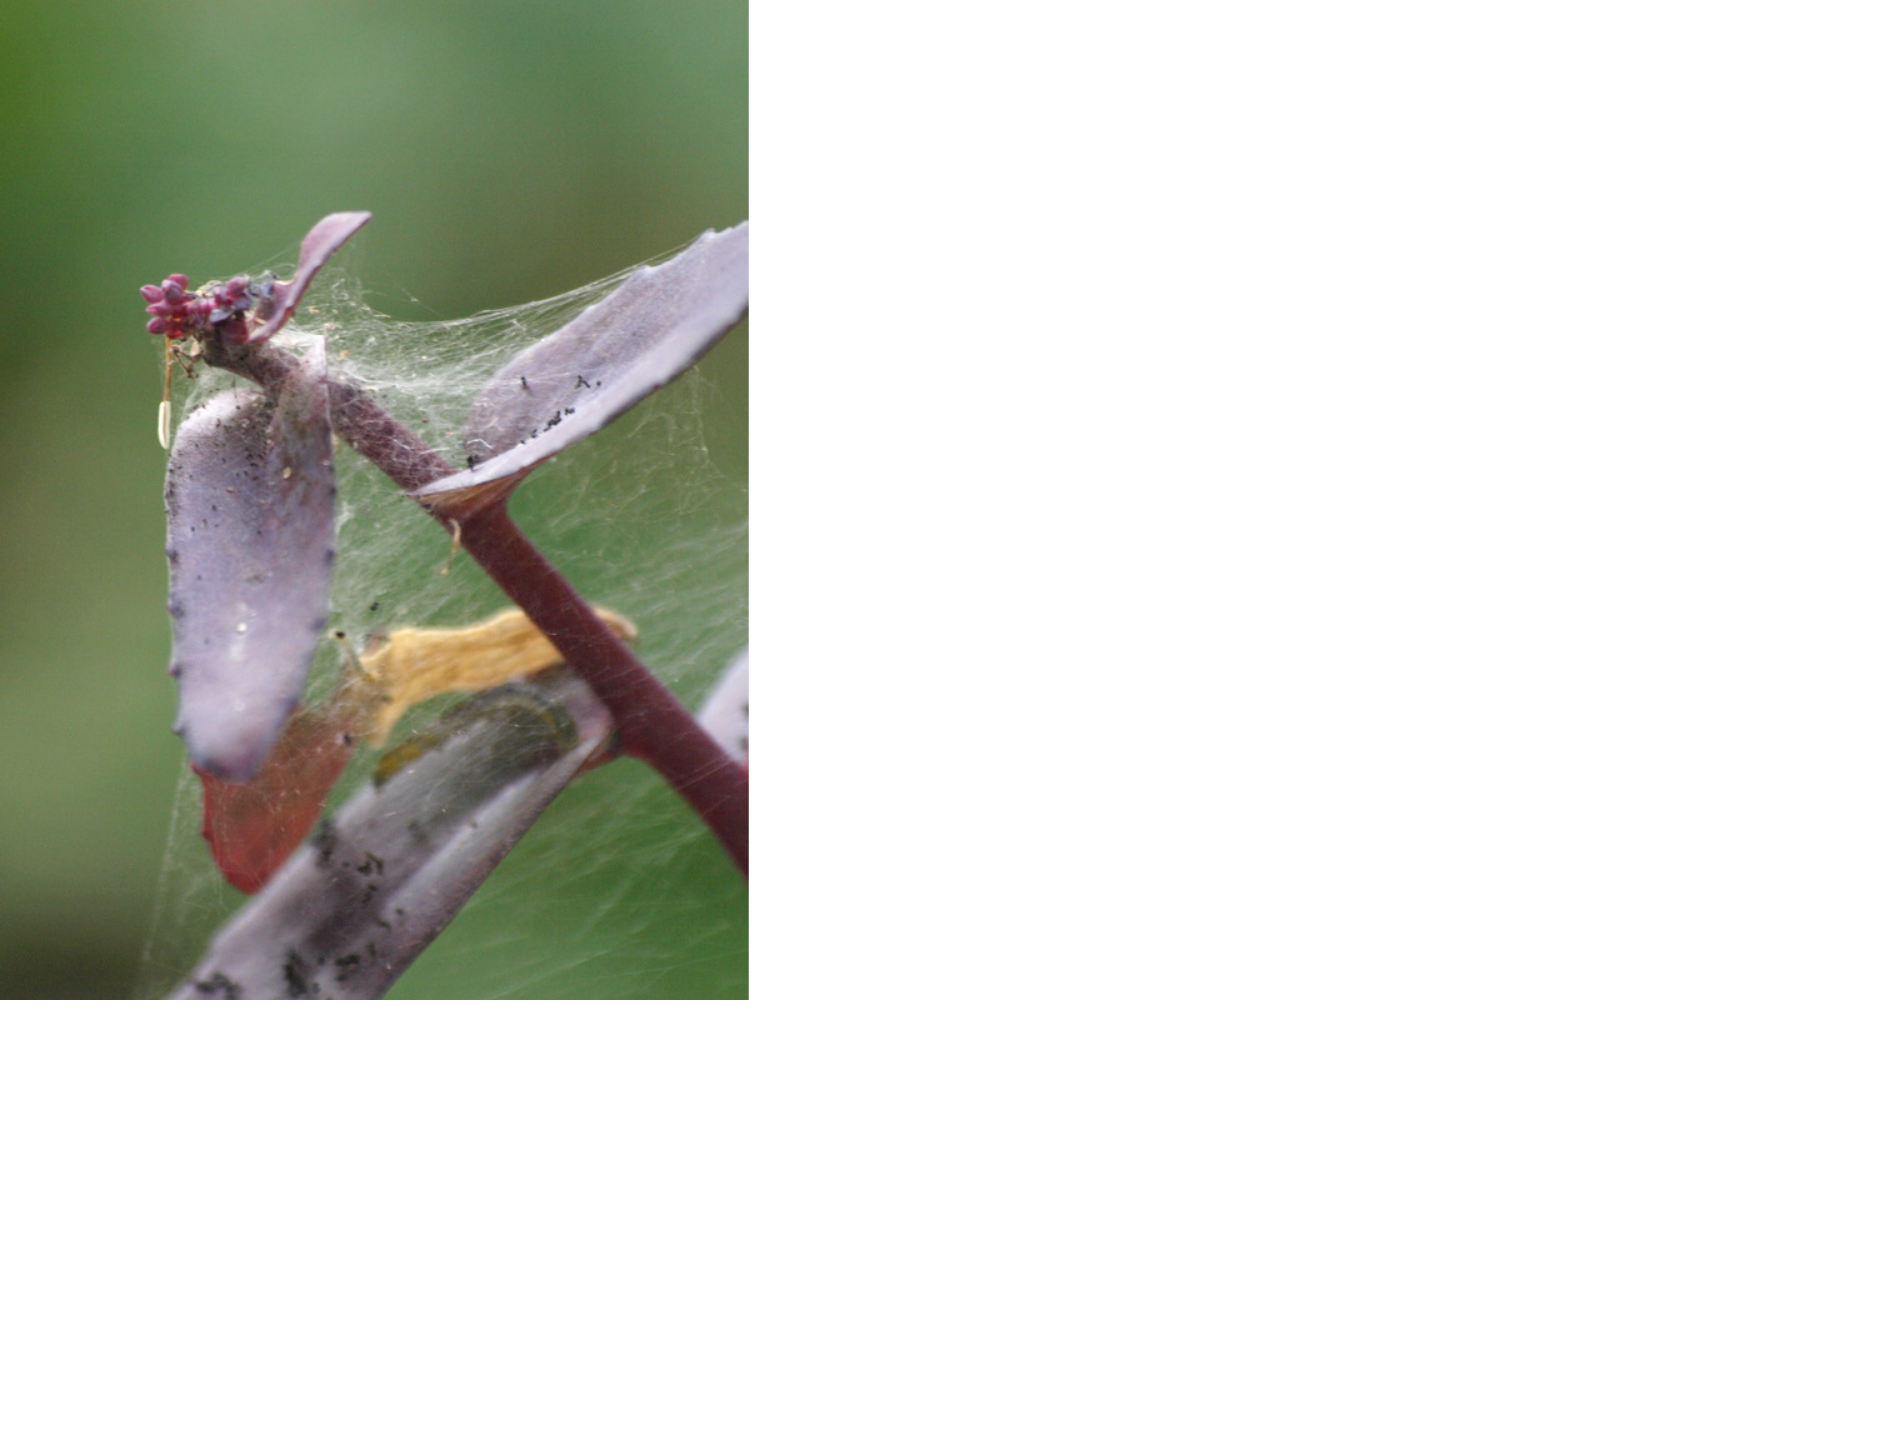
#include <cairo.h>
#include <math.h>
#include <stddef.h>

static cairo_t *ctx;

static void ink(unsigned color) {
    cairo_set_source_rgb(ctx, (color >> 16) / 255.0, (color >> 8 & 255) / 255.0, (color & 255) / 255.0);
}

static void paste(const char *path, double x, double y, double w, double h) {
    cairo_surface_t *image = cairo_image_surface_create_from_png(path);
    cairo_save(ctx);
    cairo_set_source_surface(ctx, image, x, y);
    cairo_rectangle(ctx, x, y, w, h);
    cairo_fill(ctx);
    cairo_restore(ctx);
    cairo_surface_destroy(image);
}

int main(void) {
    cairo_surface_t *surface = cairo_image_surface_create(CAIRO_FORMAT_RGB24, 1877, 1454);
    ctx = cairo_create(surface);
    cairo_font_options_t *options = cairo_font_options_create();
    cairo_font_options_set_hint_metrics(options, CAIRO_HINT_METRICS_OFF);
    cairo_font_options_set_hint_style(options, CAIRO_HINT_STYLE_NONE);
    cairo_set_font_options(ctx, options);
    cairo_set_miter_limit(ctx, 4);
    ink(0xffffff);
    cairo_paint(ctx);
    paste("pic1.png", 0, 0, 749, 1000);
    cairo_surface_write_to_png(surface, "screenshot.png");
    cairo_font_options_destroy(options);
    cairo_destroy(ctx);
    cairo_surface_destroy(surface);
    return 0;
}
